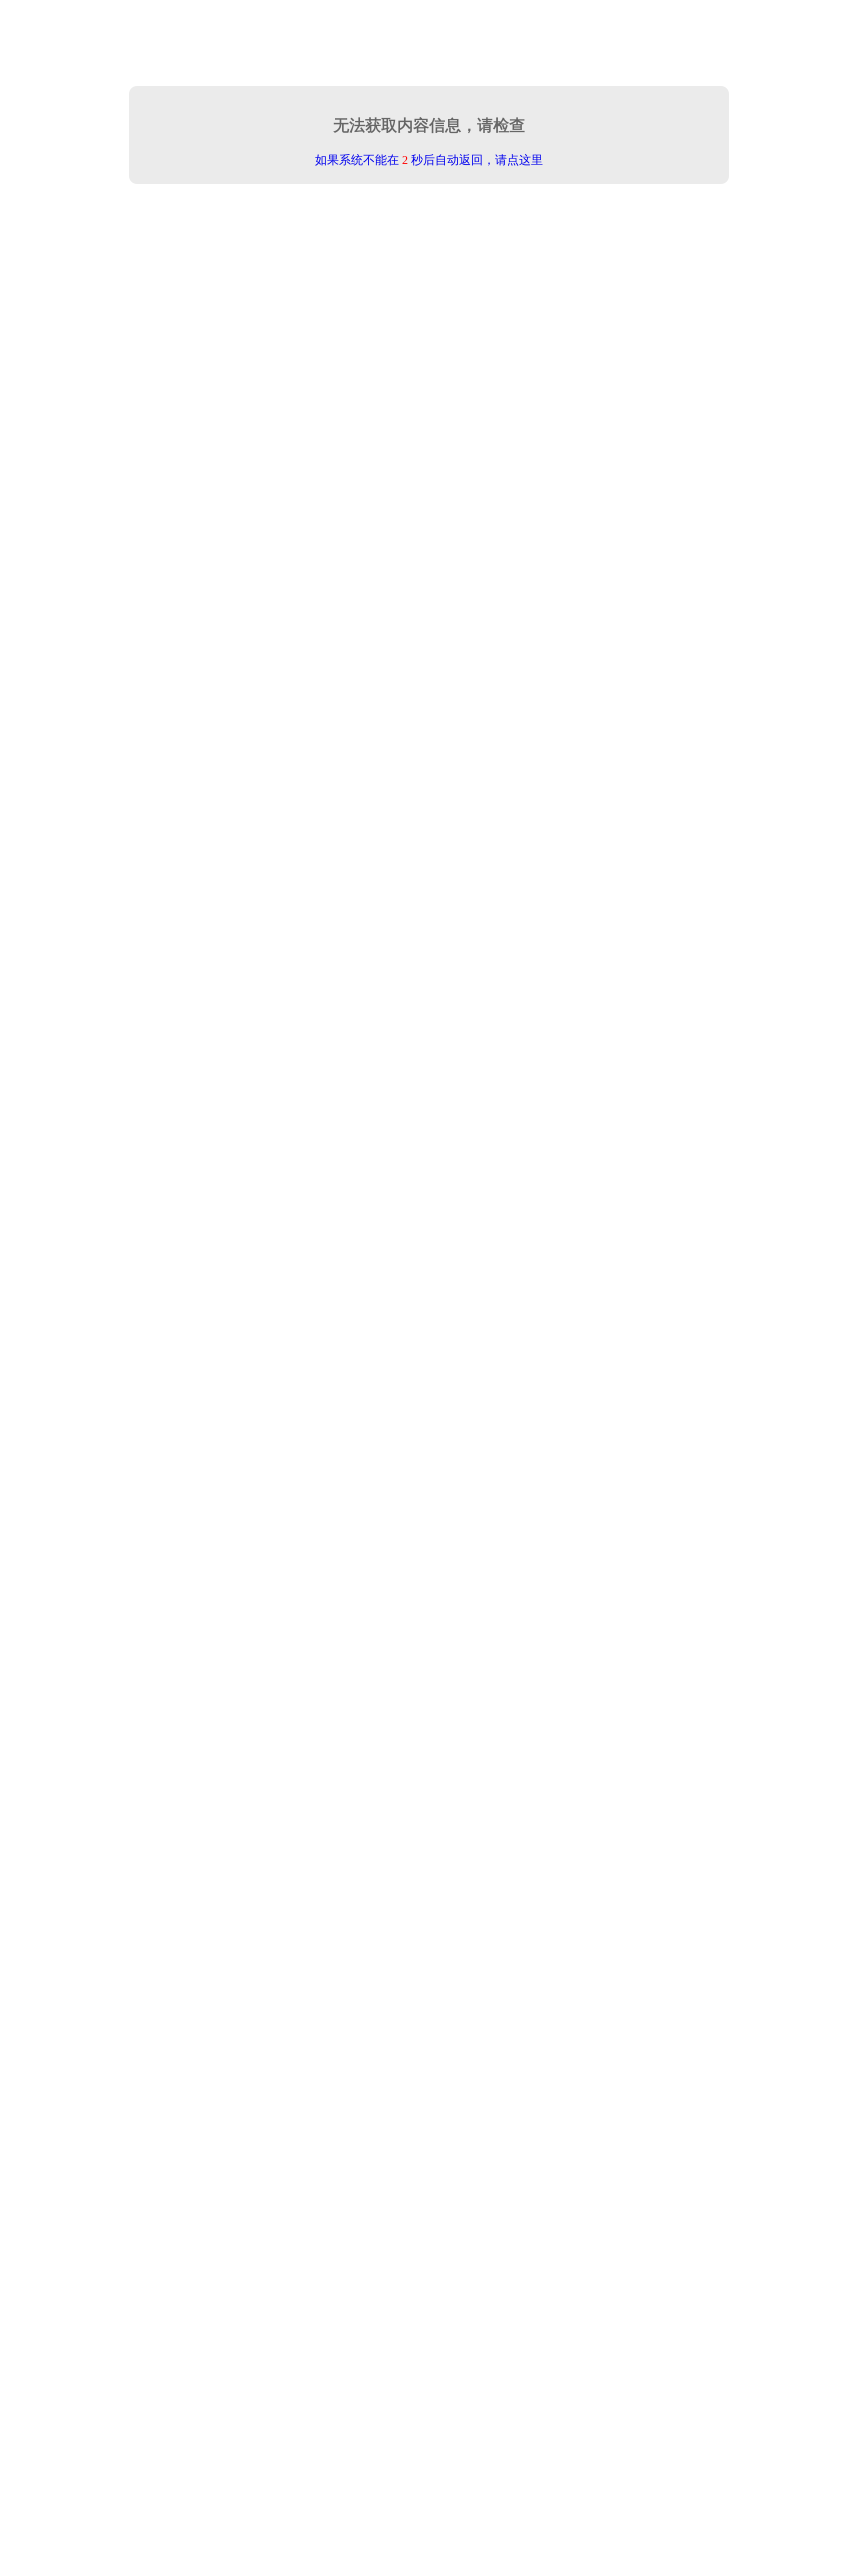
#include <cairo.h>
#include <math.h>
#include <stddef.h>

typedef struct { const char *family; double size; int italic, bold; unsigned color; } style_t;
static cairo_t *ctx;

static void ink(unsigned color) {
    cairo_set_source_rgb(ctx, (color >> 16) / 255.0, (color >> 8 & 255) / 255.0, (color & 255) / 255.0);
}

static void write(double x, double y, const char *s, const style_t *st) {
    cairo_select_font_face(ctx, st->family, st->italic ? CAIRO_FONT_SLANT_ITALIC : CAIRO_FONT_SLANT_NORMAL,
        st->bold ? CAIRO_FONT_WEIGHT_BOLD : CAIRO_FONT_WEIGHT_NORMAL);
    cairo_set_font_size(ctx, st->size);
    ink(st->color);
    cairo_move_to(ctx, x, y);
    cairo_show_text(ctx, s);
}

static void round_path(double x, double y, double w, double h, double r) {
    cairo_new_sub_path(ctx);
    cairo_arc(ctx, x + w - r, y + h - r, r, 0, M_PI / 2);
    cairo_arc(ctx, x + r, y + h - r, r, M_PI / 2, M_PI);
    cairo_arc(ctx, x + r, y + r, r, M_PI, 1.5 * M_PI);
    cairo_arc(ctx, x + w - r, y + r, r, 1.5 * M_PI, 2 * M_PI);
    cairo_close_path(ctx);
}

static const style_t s1 = {"WenQuanYi Zen Hei", 16, 0, 1, 0x666666};
static const style_t s2 = {"WenQuanYi Zen Hei Medium", 12, 0, 0, 0x0000ee};
static const style_t s3 = {"Liberation Serif", 12, 0, 0, 0xff0000};

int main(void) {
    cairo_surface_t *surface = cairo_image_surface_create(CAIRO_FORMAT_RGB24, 857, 2567);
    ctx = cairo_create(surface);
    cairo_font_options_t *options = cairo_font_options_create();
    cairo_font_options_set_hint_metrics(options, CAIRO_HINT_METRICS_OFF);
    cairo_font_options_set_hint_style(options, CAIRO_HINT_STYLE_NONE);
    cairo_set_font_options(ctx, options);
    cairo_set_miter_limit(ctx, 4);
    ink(0xffffff);
    cairo_paint(ctx);
    ink(0xebebeb);
    round_path(129, 86, 600, 98, 8);
    cairo_fill(ctx);
    write(333, 131, "无法获取内容信息，请检查", &s1);
    write(315, 164, "如果系统不能在", &s2);
    write(402, 164, "2", &s3);
    write(411, 164, "秒后自动返回，请点这里", &s2);
    cairo_surface_write_to_png(surface, "screenshot.png");
    cairo_font_options_destroy(options);
    cairo_destroy(ctx);
    cairo_surface_destroy(surface);
    return 0;
}
